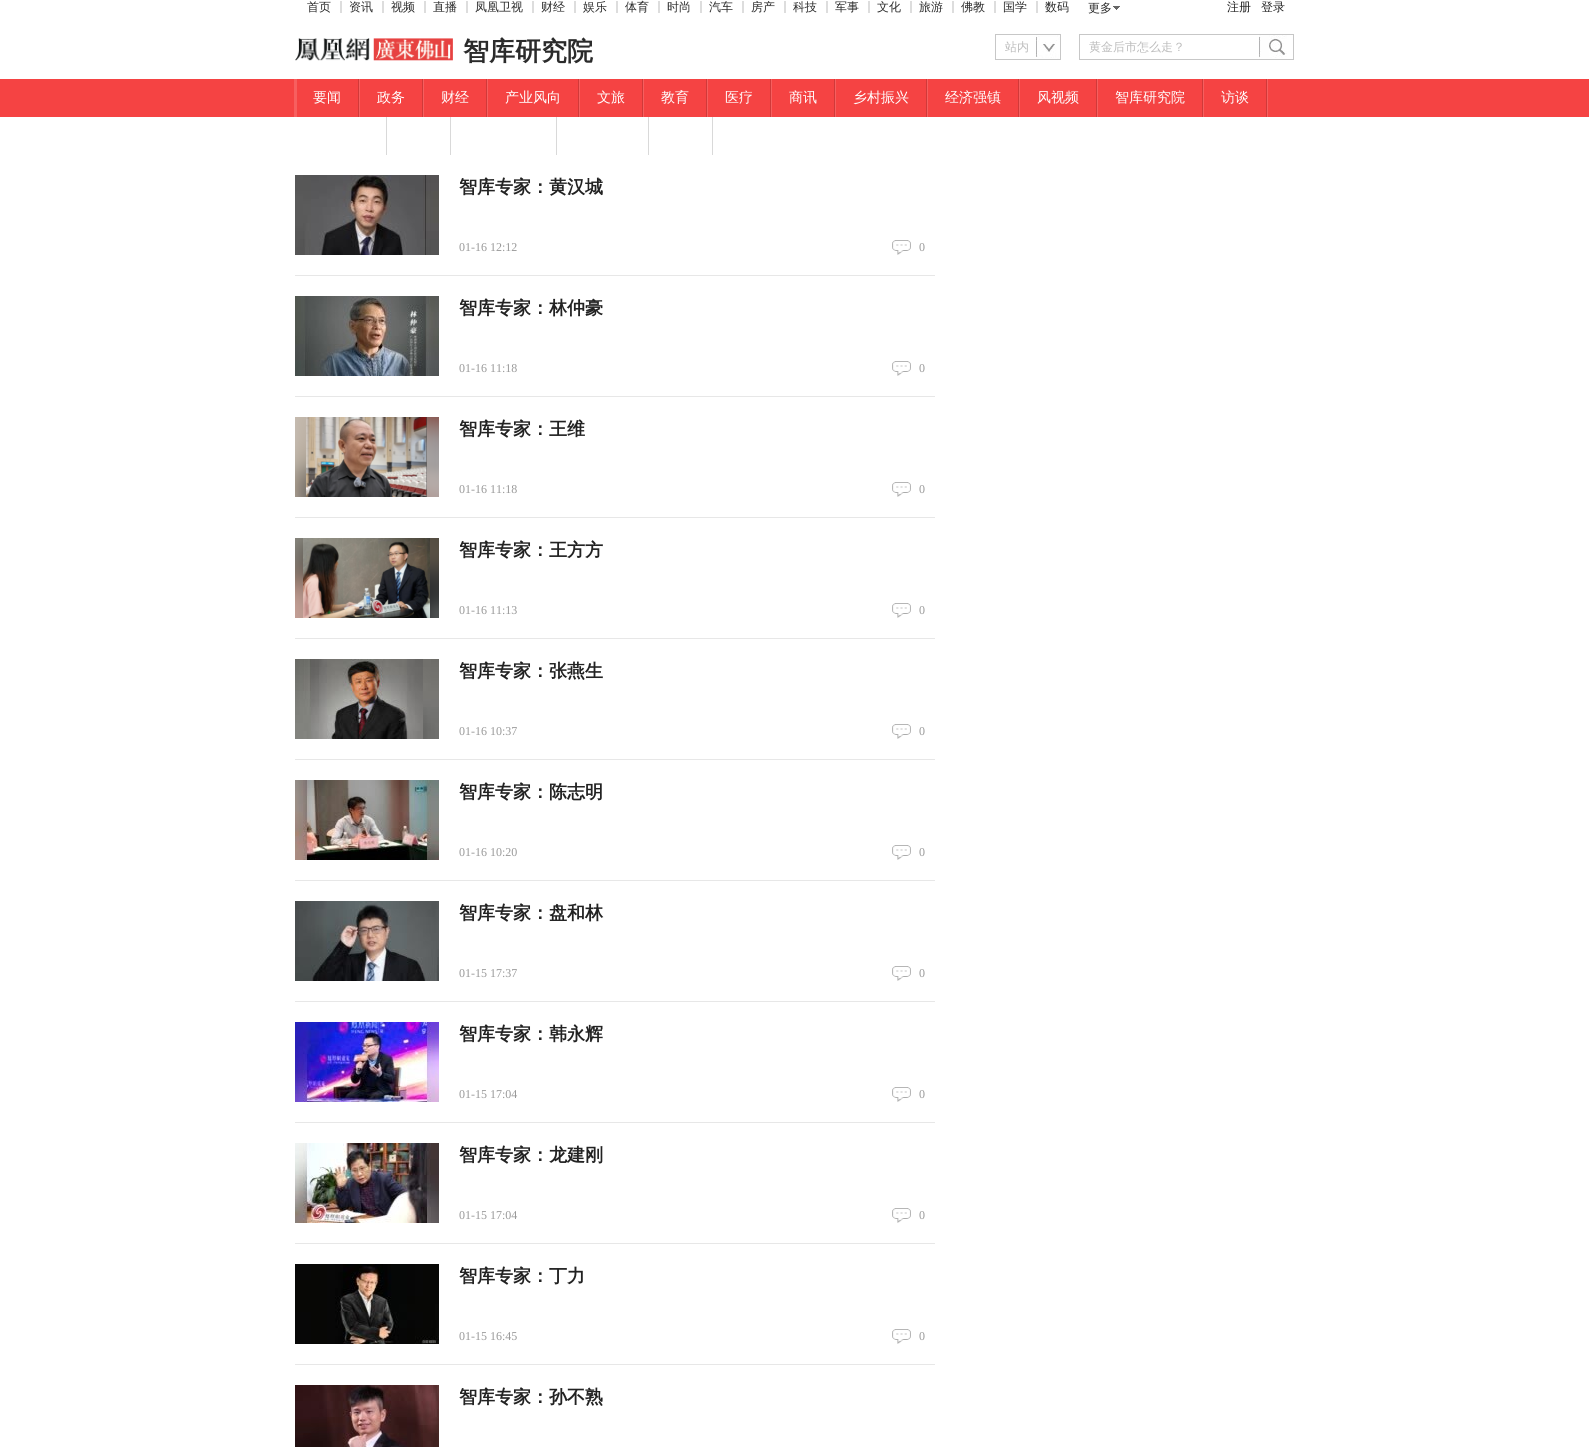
#include <cairo.h>
#include <math.h>
#include <stddef.h>

typedef struct { const char *family; double size; int italic, bold; unsigned color; } style_t;
static cairo_t *ctx;

static void ink(unsigned color) {
    cairo_set_source_rgb(ctx, (color >> 16) / 255.0, (color >> 8 & 255) / 255.0, (color & 255) / 255.0);
}

static void write(double x, double y, const char *s, const style_t *st) {
    cairo_select_font_face(ctx, st->family, st->italic ? CAIRO_FONT_SLANT_ITALIC : CAIRO_FONT_SLANT_NORMAL,
        st->bold ? CAIRO_FONT_WEIGHT_BOLD : CAIRO_FONT_WEIGHT_NORMAL);
    cairo_set_font_size(ctx, st->size);
    ink(st->color);
    cairo_move_to(ctx, x, y);
    cairo_show_text(ctx, s);
}

static void block(double x, double y, double w, double h, unsigned color) {
    ink(color);
    cairo_rectangle(ctx, x, y, w, h);
    cairo_fill(ctx);
}

static void paste(const char *path, double x, double y, double w, double h) {
    cairo_surface_t *image = cairo_image_surface_create_from_png(path);
    cairo_save(ctx);
    cairo_set_source_surface(ctx, image, x, y);
    cairo_rectangle(ctx, x, y, w, h);
    cairo_fill(ctx);
    cairo_restore(ctx);
    cairo_surface_destroy(image);
}

static const style_t s1 = {"WenQuanYi Zen Hei Medium", 12, 0, 0, 0x2b2b2b};
static const style_t s2 = {"WenQuanYi Zen Hei Medium", 12, 0, 0, 0x222222};
static const style_t s3 = {"WenQuanYi Zen Hei", 26, 0, 1, 0x2b2b2b};
static const style_t s4 = {"WenQuanYi Zen Hei Medium", 12, 0, 0, 0xbcbcbc};
static const style_t s5 = {"WenQuanYi Zen Hei Medium", 14, 0, 0, 0xffffff};
static const style_t s6 = {"WenQuanYi Zen Hei", 18, 0, 1, 0x222222};
static const style_t s7 = {"Liberation Serif", 12, 0, 0, 0x999999};

int main(void) {
    cairo_surface_t *surface = cairo_image_surface_create(CAIRO_FORMAT_RGB24, 1589, 1447);
    ctx = cairo_create(surface);
    cairo_font_options_t *options = cairo_font_options_create();
    cairo_font_options_set_hint_metrics(options, CAIRO_HINT_METRICS_OFF);
    cairo_font_options_set_hint_style(options, CAIRO_HINT_STYLE_NONE);
    cairo_set_font_options(ctx, options);
    cairo_set_miter_limit(ctx, 4);
    ink(0xffffff);
    cairo_paint(ctx);
    write(307, 11, "首页", &s1);
    block(340, 1, 2, 12, 0xdddddd);
    write(349, 11, "资讯", &s1);
    block(382, 1, 2, 12, 0xdddddd);
    write(391, 11, "视频", &s1);
    block(424, 1, 2, 12, 0xdddddd);
    write(433, 11, "直播", &s1);
    block(466, 1, 2, 12, 0xdddddd);
    write(475, 11, "凤凰卫视", &s1);
    block(532, 1, 2, 12, 0xdddddd);
    write(541, 11, "财经", &s1);
    block(574, 1, 2, 12, 0xdddddd);
    write(583, 11, "娱乐", &s1);
    block(616, 1, 2, 12, 0xdddddd);
    write(625, 11, "体育", &s1);
    block(658, 1, 2, 12, 0xdddddd);
    write(667, 11, "时尚", &s1);
    block(700, 1, 2, 12, 0xdddddd);
    write(709, 11, "汽车", &s1);
    block(742, 1, 2, 12, 0xdddddd);
    write(751, 11, "房产", &s1);
    block(784, 1, 2, 12, 0xdddddd);
    write(793, 11, "科技", &s1);
    block(826, 1, 2, 12, 0xdddddd);
    write(835, 11, "军事", &s1);
    block(868, 1, 2, 12, 0xdddddd);
    write(877, 11, "文化", &s1);
    block(910, 1, 2, 12, 0xdddddd);
    write(919, 11, "旅游", &s1);
    block(952, 1, 2, 12, 0xdddddd);
    write(961, 11, "佛教", &s1);
    block(994, 1, 2, 12, 0xdddddd);
    write(1003, 11, "国学", &s1);
    block(1036, 1, 2, 12, 0xdddddd);
    write(1045, 11, "数码", &s1);
    paste("pic1.png", 1113, 6, 7, 4);
    write(1088, 12, "更多", &s1);
    write(1227, 11, "注册", &s2);
    write(1261, 11, "登录", &s2);
    paste("pic2.png", 295, 38, 158, 23);
    write(463, 60, "智库研究院", &s3);
    paste("pic3.png", 1036, 35, 24, 24);
    cairo_rectangle(ctx, 995.5, 34.5, 65, 25);
    ink(0xc7c7c7);
    cairo_set_line_width(ctx, 1);
    cairo_stroke(ctx);
    write(1005, 51, "站内", &s4);
    block(1079, 34, 215, 1, 0xc7c7c7);
    block(1079, 59, 180, 1, 0xc7c7c7);
    block(1079, 34, 1, 26, 0xc7c7c7);
    write(1089, 51, "黄金后市怎么走？", &s4);
    paste("pic4.png", 1259, 35, 28, 24);
    block(1293, 34, 1, 26, 0xc7c7c7);
    block(1259, 59, 35, 1, 0xc7c7c7);
    block(0, 79, 1589, 38, 0xf54343);
    block(294, 79, 3, 38, 0xf75f5f);
    paste("pic5.png", 358, 79, 2, 38);
    write(313, 102, "要闻", &s5);
    paste("pic5.png", 422, 79, 2, 38);
    write(377, 102, "政务", &s5);
    paste("pic5.png", 486, 79, 2, 38);
    write(441, 102, "财经", &s5);
    paste("pic5.png", 578, 79, 2, 38);
    write(505, 102, "产业风向", &s5);
    paste("pic5.png", 642, 79, 2, 38);
    write(597, 102, "文旅", &s5);
    paste("pic5.png", 706, 79, 2, 38);
    write(661, 102, "教育", &s5);
    paste("pic5.png", 770, 79, 2, 38);
    write(725, 102, "医疗", &s5);
    paste("pic5.png", 834, 79, 2, 38);
    write(789, 102, "商讯", &s5);
    paste("pic5.png", 926, 79, 2, 38);
    write(853, 102, "乡村振兴", &s5);
    paste("pic5.png", 1018, 79, 2, 38);
    write(945, 102, "经济强镇", &s5);
    paste("pic5.png", 1096, 79, 2, 38);
    write(1037, 102, "风视频", &s5);
    paste("pic5.png", 1202, 79, 2, 38);
    write(1115, 102, "智库研究院", &s5);
    paste("pic5.png", 1266, 79, 2, 38);
    write(1221, 102, "访谈", &s5);
    block(386, 117, 1, 38, 0xd9d9d9);
    block(450, 117, 1, 38, 0xd9d9d9);
    block(556, 117, 1, 38, 0xd9d9d9);
    block(648, 117, 1, 38, 0xd9d9d9);
    block(712, 117, 1, 38, 0xd9d9d9);
    block(295, 275, 640, 1, 0xe7e7e7);
    paste("pic6.png", 295, 175, 144, 80);
    write(459, 193, "智库专家：黄汉城", &s6);
    write(459, 251, "01-16 12:12", &s7);
    paste("pic7.png", 892, 240, 19, 15);
    write(919, 251, "0", &s7);
    block(295, 396, 640, 1, 0xe7e7e7);
    paste("pic8.png", 295, 296, 144, 80);
    write(459, 314, "智库专家：林仲豪", &s6);
    write(459, 372, "01-16 11:18", &s7);
    paste("pic7.png", 892, 361, 19, 15);
    write(919, 372, "0", &s7);
    block(295, 517, 640, 1, 0xe7e7e7);
    paste("pic9.png", 295, 417, 144, 80);
    write(459, 435, "智库专家：王维", &s6);
    write(459, 493, "01-16 11:18", &s7);
    paste("pic7.png", 892, 482, 19, 15);
    write(919, 493, "0", &s7);
    block(295, 638, 640, 1, 0xe7e7e7);
    paste("pic10.png", 295, 538, 144, 80);
    write(459, 556, "智库专家：王方方", &s6);
    write(459, 614, "01-16 11:13", &s7);
    paste("pic7.png", 892, 603, 19, 15);
    write(919, 614, "0", &s7);
    block(295, 759, 640, 1, 0xe7e7e7);
    paste("pic11.png", 295, 659, 144, 80);
    write(459, 677, "智库专家：张燕生", &s6);
    write(459, 735, "01-16 10:37", &s7);
    paste("pic7.png", 892, 724, 19, 15);
    write(919, 735, "0", &s7);
    block(295, 880, 640, 1, 0xe7e7e7);
    paste("pic12.png", 295, 780, 144, 80);
    write(459, 798, "智库专家：陈志明", &s6);
    write(459, 856, "01-16 10:20", &s7);
    paste("pic7.png", 892, 845, 19, 15);
    write(919, 856, "0", &s7);
    block(295, 1001, 640, 1, 0xe7e7e7);
    paste("pic13.png", 295, 901, 144, 80);
    write(459, 919, "智库专家：盘和林", &s6);
    write(459, 977, "01-15 17:37", &s7);
    paste("pic7.png", 892, 966, 19, 15);
    write(919, 977, "0", &s7);
    block(295, 1122, 640, 1, 0xe7e7e7);
    paste("pic14.png", 295, 1022, 144, 80);
    write(459, 1040, "智库专家：韩永辉", &s6);
    write(459, 1098, "01-15 17:04", &s7);
    paste("pic7.png", 892, 1087, 19, 15);
    write(919, 1098, "0", &s7);
    block(295, 1243, 640, 1, 0xe7e7e7);
    paste("pic15.png", 295, 1143, 144, 80);
    write(459, 1161, "智库专家：龙建刚", &s6);
    write(459, 1219, "01-15 17:04", &s7);
    paste("pic7.png", 892, 1208, 19, 15);
    write(919, 1219, "0", &s7);
    block(295, 1364, 640, 1, 0xe7e7e7);
    paste("pic16.png", 295, 1264, 144, 80);
    write(459, 1282, "智库专家：丁力", &s6);
    write(459, 1340, "01-15 16:45", &s7);
    paste("pic7.png", 892, 1329, 19, 15);
    write(919, 1340, "0", &s7);
    paste("pic17.png", 295, 1385, 144, 62);
    write(459, 1403, "智库专家：孙不熟", &s6);
    cairo_surface_write_to_png(surface, "screenshot.png");
    cairo_font_options_destroy(options);
    cairo_destroy(ctx);
    cairo_surface_destroy(surface);
    return 0;
}
